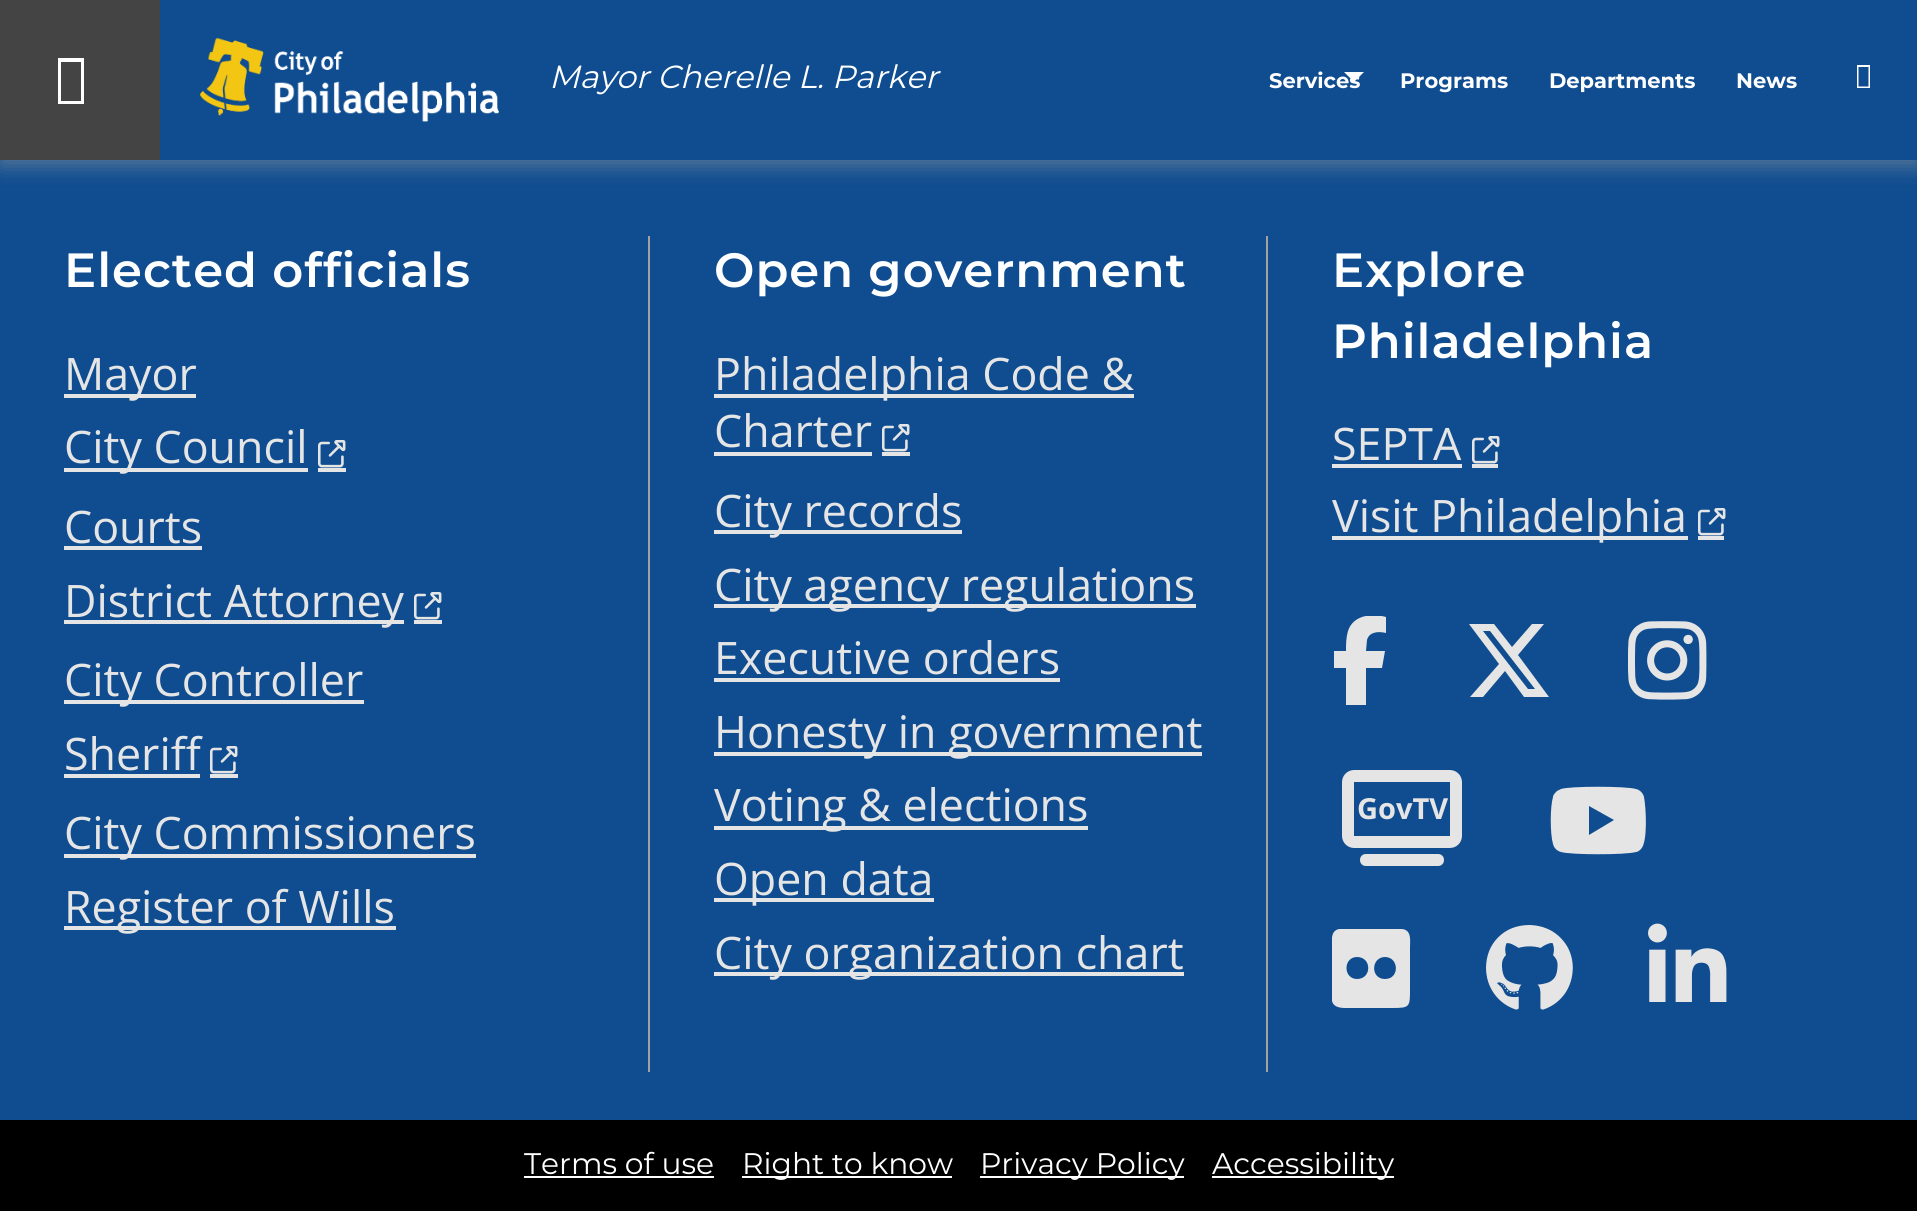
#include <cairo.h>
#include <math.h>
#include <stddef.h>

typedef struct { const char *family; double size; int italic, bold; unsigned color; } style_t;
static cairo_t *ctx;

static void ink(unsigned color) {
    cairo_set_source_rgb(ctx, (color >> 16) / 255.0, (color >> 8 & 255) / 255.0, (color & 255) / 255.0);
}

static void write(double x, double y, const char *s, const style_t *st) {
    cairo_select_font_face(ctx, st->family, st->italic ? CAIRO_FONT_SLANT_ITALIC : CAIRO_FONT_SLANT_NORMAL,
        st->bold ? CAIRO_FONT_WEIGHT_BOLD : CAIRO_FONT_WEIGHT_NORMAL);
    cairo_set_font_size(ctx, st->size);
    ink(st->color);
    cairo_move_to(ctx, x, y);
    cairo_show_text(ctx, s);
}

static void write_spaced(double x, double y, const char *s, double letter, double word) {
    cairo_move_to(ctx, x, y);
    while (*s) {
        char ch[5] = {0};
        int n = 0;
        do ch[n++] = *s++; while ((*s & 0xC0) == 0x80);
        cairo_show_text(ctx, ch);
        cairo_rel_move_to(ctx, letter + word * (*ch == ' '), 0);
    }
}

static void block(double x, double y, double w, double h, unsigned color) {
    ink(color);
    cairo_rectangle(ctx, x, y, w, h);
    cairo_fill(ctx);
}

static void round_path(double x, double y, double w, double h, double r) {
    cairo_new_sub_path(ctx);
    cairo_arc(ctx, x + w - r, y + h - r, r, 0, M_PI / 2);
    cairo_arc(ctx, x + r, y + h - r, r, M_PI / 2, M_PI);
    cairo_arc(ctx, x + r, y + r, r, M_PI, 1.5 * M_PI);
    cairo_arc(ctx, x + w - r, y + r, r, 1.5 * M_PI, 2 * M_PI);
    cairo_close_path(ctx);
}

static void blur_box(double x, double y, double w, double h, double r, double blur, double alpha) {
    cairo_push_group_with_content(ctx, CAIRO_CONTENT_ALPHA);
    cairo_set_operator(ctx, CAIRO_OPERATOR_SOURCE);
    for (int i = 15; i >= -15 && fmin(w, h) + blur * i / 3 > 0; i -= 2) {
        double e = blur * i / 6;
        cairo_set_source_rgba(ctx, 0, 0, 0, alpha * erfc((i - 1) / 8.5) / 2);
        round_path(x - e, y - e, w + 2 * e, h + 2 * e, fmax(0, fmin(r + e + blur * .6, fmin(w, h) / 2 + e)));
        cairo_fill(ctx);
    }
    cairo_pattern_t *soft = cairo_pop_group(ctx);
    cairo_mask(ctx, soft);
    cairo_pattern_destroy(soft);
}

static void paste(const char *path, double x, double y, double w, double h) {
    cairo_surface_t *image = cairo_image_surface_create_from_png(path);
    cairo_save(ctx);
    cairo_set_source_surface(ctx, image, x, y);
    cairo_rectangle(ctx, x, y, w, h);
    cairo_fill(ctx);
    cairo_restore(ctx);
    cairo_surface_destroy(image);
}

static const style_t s1 = {"Montserrat", 32, 1, 0, 0xffffff};
static const style_t s2 = {"Montserrat", 21, 0, 1, 0xffffff};
static const style_t s3 = {"Open Sans", 44.75, 0, 0, 0xe5e5e5};
static const style_t s4 = {"Open Sans", 29, 0, 1, 0xe5e5e5};
static const style_t s5 = {"Montserrat", 29.75, 0, 0, 0xffffff};

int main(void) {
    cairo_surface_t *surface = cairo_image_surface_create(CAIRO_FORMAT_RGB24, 1917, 1211);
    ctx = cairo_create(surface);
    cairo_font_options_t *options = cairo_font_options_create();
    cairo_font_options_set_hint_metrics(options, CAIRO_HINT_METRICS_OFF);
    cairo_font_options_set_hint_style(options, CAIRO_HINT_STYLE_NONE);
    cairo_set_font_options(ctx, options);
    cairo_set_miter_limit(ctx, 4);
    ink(0x0f4d90);
    cairo_paint(ctx);
    ink(0xa1a1a1);
    blur_box(0, 6, 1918, 160, 0, 10, 0.5);
    block(160, 0, 1757, 160, 0x0f4d90);
    block(0, 0, 160, 160, 0x444444);
    ink(0xffffff);
    cairo_new_path(ctx);
    cairo_move_to(ctx, 58, 104);
    cairo_line_to(ctx, 58, 58);
    cairo_line_to(ctx, 84, 58);
    cairo_line_to(ctx, 84, 104);
    cairo_close_path(ctx);
    cairo_move_to(ctx, 61, 101);
    cairo_line_to(ctx, 81, 101);
    cairo_line_to(ctx, 81, 62);
    cairo_line_to(ctx, 61, 62);
    cairo_close_path(ctx);
    cairo_fill(ctx);
    paste("pic1.png", 200, 37, 299, 85);
    write(549, 88, "Mayor Cherelle L. Parker", &s1);
    write(1269, 88, "Services", &s2);
    cairo_new_path(ctx);
    cairo_move_to(ctx, 1344, 72);
    cairo_line_to(ctx, 1364, 72);
    cairo_line_to(ctx, 1354, 82);
    cairo_close_path(ctx);
    cairo_fill(ctx);
    write(1400, 88, "Programs", &s2);
    write(1549, 88, "Departments", &s2);
    write(1736, 88, "News", &s2);
    cairo_new_path(ctx);
    cairo_move_to(ctx, 1857, 88);
    cairo_line_to(ctx, 1857, 65);
    cairo_line_to(ctx, 1870, 65);
    cairo_line_to(ctx, 1870, 88);
    cairo_close_path(ctx);
    cairo_move_to(ctx, 1858.5, 86.5);
    cairo_line_to(ctx, 1868.5, 86.5);
    cairo_line_to(ctx, 1868.5, 67);
    cairo_line_to(ctx, 1858.5, 67);
    cairo_close_path(ctx);
    cairo_fill(ctx);
    block(648, 236, 2, 836, 0xa2a2a2);
    cairo_select_font_face(ctx, "Montserrat Thin", CAIRO_FONT_SLANT_NORMAL, CAIRO_FONT_WEIGHT_NORMAL);
    cairo_set_font_size(ctx, 48);
    ink(0xffffff);
    write_spaced(64, 287, "Elected officials", 1, 0);
    block(64, 394, 132, 4, 0xe5e5e5);
    write(64, 390, "Mayor", &s3);
    block(64, 468, 244, 4, 0xe5e5e5);
    write(64, 463, "City Council", &s3);
    block(318, 468, 28, 4, 0xe5e5e5);
    paste("pic2.png", 318, 440, 28, 28);
    write(64, 543, "Courts", &s3);
    block(64, 546, 138, 4, 0xe5e5e5);
    block(64, 620, 340, 4, 0xe5e5e5);
    write(64, 617, "District Attorney", &s3);
    block(414, 620, 28, 4, 0xe5e5e5);
    paste("pic2.png", 414, 592, 28, 28);
    block(64, 700, 300, 4, 0xe5e5e5);
    write(64, 696, "City Controller", &s3);
    write(64, 770, "Sheriff", &s3);
    block(64, 774, 136, 4, 0xe5e5e5);
    block(210, 774, 28, 4, 0xe5e5e5);
    paste("pic2.png", 210, 746, 28, 28);
    block(64, 854, 412, 4, 0xe5e5e5);
    write(64, 849, "City Commissioners", &s3);
    block(64, 926, 332, 4, 0xe5e5e5);
    write(64, 923, "Register of Wills", &s3);
    block(1266, 236, 2, 836, 0xa2a2a2);
    cairo_select_font_face(ctx, "Montserrat Thin", CAIRO_FONT_SLANT_NORMAL, CAIRO_FONT_WEIGHT_NORMAL);
    cairo_set_font_size(ctx, 48);
    ink(0xffffff);
    write_spaced(714, 287, "Open government", 1, 0);
    block(714, 394, 420, 4, 0xe5e5e5);
    write(714, 390, "Philadelphia Code &", &s3);
    write(714, 447, "Charter", &s3);
    block(714, 452, 158, 4, 0xe5e5e5);
    block(882, 452, 28, 4, 0xe5e5e5);
    paste("pic2.png", 882, 424, 28, 28);
    block(714, 530, 248, 4, 0xe5e5e5);
    write(714, 527, "City records", &s3);
    block(714, 604, 482, 4, 0xe5e5e5);
    write(714, 601, "City agency regulations", &s3);
    write(714, 674, "Executive orders", &s3);
    block(714, 678, 346, 4, 0xe5e5e5);
    block(714, 752, 488, 4, 0xe5e5e5);
    write(714, 748, "Honesty in government", &s3);
    block(714, 826, 374, 4, 0xe5e5e5);
    write(714, 821, "Voting & elections", &s3);
    block(714, 898, 220, 4, 0xe5e5e5);
    write(714, 895, "Open data", &s3);
    block(714, 972, 470, 4, 0xe5e5e5);
    write(714, 969, "City organization chart", &s3);
    cairo_select_font_face(ctx, "Montserrat Thin", CAIRO_FONT_SLANT_NORMAL, CAIRO_FONT_WEIGHT_NORMAL);
    cairo_set_font_size(ctx, 48);
    ink(0xffffff);
    write_spaced(1332, 287, "Explore", 1, 0);
    write_spaced(1332, 358, "Philadelphia", 1, 0);
    write(1332, 460, "SEPTA", &s3);
    block(1332, 464, 130, 4, 0xe5e5e5);
    block(1472, 464, 26, 4, 0xe5e5e5);
    paste("pic2.png", 1472, 436, 28, 28);
    block(1332, 536, 356, 4, 0xe5e5e5);
    write(1332, 532, "Visit Philadelphia", &s3);
    block(1698, 536, 26, 4, 0xe5e5e5);
    paste("pic2.png", 1698, 508, 28, 28);
    cairo_save(ctx);
    cairo_rectangle(ctx, 1332, 616, 522, 456);
    cairo_clip(ctx);
    cairo_new_path(ctx);
    cairo_move_to(ctx, 1346, 668);
    cairo_line_to(ctx, 1346, 705);
    cairo_line_to(ctx, 1346, 668);
    cairo_line_to(ctx, 1346, 705);
    cairo_line_to(ctx, 1366, 705);
    cairo_line_to(ctx, 1366, 668);
    cairo_line_to(ctx, 1382, 668);
    cairo_line_to(ctx, 1385, 651);
    cairo_line_to(ctx, 1366, 651);
    cairo_line_to(ctx, 1367, 640);
    cairo_curve_to(ctx, 1369, 632, 1378, 631, 1386, 633);
    cairo_line_to(ctx, 1386, 617);
    cairo_curve_to(ctx, 1372, 613, 1353, 615, 1348, 631);
    cairo_curve_to(ctx, 1346, 638, 1346, 644, 1346, 651);
    cairo_line_to(ctx, 1334, 651);
    cairo_line_to(ctx, 1334, 668);
    cairo_close_path(ctx);
    cairo_fill(ctx);
    cairo_restore(ctx);
    cairo_new_path(ctx);
    cairo_move_to(ctx, 1532, 624);
    cairo_line_to(ctx, 1544, 624);
    cairo_line_to(ctx, 1532, 624);
    cairo_line_to(ctx, 1544, 624);
    cairo_line_to(ctx, 1518, 655);
    cairo_line_to(ctx, 1549, 697);
    cairo_line_to(ctx, 1524, 697);
    cairo_line_to(ctx, 1505, 671);
    cairo_line_to(ctx, 1483, 697);
    cairo_line_to(ctx, 1470, 697);
    cairo_line_to(ctx, 1499, 664);
    cairo_line_to(ctx, 1469, 624);
    cairo_line_to(ctx, 1494, 624);
    cairo_line_to(ctx, 1512, 647);
    cairo_close_path(ctx);
    cairo_move_to(ctx, 1528, 689);
    cairo_line_to(ctx, 1535, 689);
    cairo_line_to(ctx, 1528, 689);
    cairo_line_to(ctx, 1535, 689);
    cairo_line_to(ctx, 1490, 631);
    cairo_line_to(ctx, 1483, 631);
    cairo_close_path(ctx);
    cairo_fill(ctx);
    paste("pic3.png", 1628, 621, 79, 79);
    paste("pic4.png", 1342, 770, 120, 96);
    write(1357, 819, "GovTV", &s4);
    cairo_new_path(ctx);
    cairo_move_to(ctx, 1644, 797);
    cairo_curve_to(ctx, 1643, 793, 1640, 790, 1636, 789);
    cairo_curve_to(ctx, 1626, 786, 1570, 786, 1561, 789);
    cairo_line_to(ctx, 1557, 791);
    cairo_curve_to(ctx, 1555, 793, 1553, 795, 1553, 797);
    cairo_curve_to(ctx, 1550, 807, 1550, 834, 1553, 844);
    cairo_curve_to(ctx, 1554, 848, 1557, 851, 1561, 852);
    cairo_curve_to(ctx, 1571, 855, 1626, 855, 1636, 852);
    cairo_curve_to(ctx, 1638, 852, 1640, 850, 1641, 849);
    cairo_curve_to(ctx, 1648, 842, 1646, 807, 1644, 797);
    cairo_close_path(ctx);
    cairo_move_to(ctx, 1589, 835);
    cairo_line_to(ctx, 1589, 806);
    cairo_line_to(ctx, 1589, 835);
    cairo_line_to(ctx, 1589, 806);
    cairo_line_to(ctx, 1614, 820);
    cairo_close_path(ctx);
    cairo_fill(ctx);
    cairo_save(ctx);
    cairo_rectangle(ctx, 1332, 616, 522, 456);
    cairo_clip(ctx);
    cairo_new_path(ctx);
    cairo_move_to(ctx, 1402, 929);
    cairo_line_to(ctx, 1339, 929);
    cairo_curve_to(ctx, 1330, 931, 1332, 941, 1332, 948);
    cairo_line_to(ctx, 1332, 1001);
    cairo_curve_to(ctx, 1334, 1009, 1344, 1008, 1351, 1008);
    cairo_line_to(ctx, 1392, 1008);
    cairo_curve_to(ctx, 1410, 1008, 1410, 1007, 1410, 989);
    cairo_line_to(ctx, 1410, 948);
    cairo_curve_to(ctx, 1410, 941, 1412, 930, 1402, 929);
    cairo_close_path(ctx);
    cairo_move_to(ctx, 1357, 979);
    cairo_curve_to(ctx, 1343, 979, 1343, 957, 1357, 957);
    cairo_curve_to(ctx, 1372, 957, 1372, 979, 1357, 979);
    cairo_close_path(ctx);
    cairo_move_to(ctx, 1385, 979);
    cairo_curve_to(ctx, 1370, 979, 1371, 957, 1385, 957);
    cairo_curve_to(ctx, 1399, 957, 1400, 979, 1385, 979);
    cairo_close_path(ctx);
    cairo_fill(ctx);
    cairo_restore(ctx);
    paste("pic5.png", 1486, 925, 87, 85);
    paste("pic6.png", 1648, 923, 79, 79);
    block(0, 1120, 1917, 91, 0x000000);
    write(524, 1174, "Terms of use", &s5);
    block(524, 1176, 190, 2, 0xffffff);
    block(742, 1176, 210, 2, 0xffffff);
    write(742, 1174, "Right to know", &s5);
    block(980, 1176, 204, 2, 0xffffff);
    write(980, 1174, "Privacy Policy", &s5);
    block(1212, 1176, 182, 2, 0xffffff);
    write(1212, 1174, "Accessibility", &s5);
    cairo_surface_write_to_png(surface, "screenshot.png");
    cairo_font_options_destroy(options);
    cairo_destroy(ctx);
    cairo_surface_destroy(surface);
    return 0;
}
